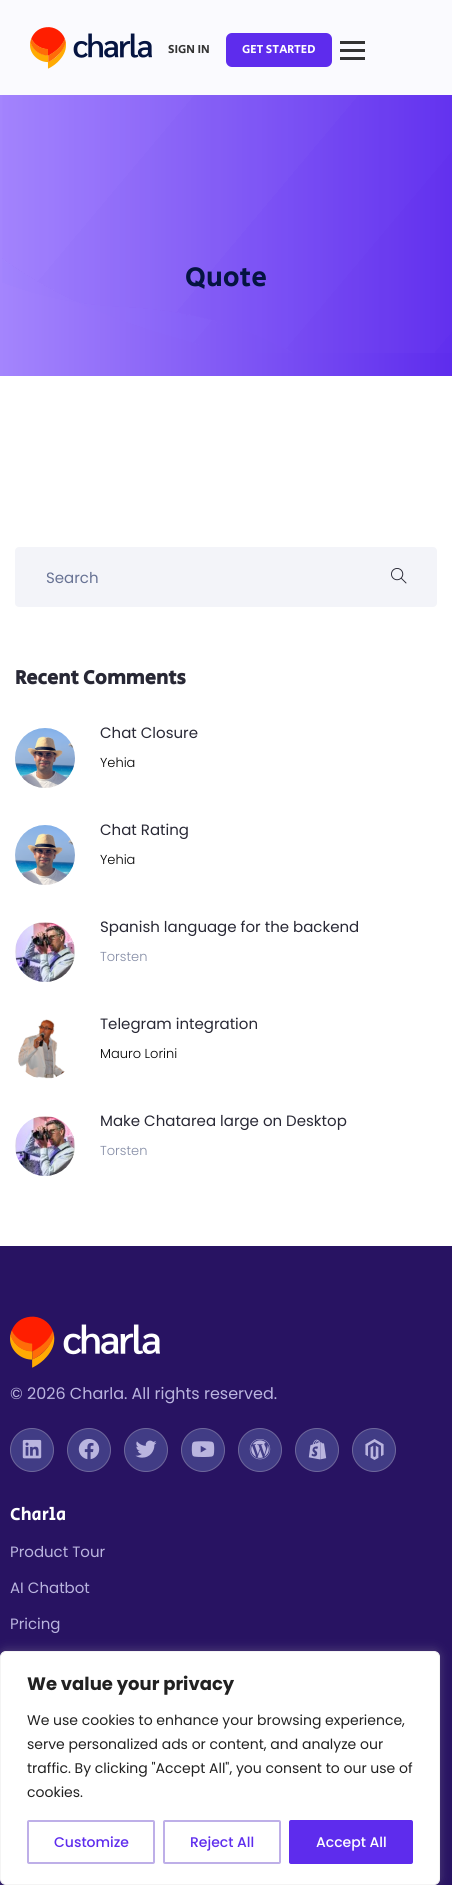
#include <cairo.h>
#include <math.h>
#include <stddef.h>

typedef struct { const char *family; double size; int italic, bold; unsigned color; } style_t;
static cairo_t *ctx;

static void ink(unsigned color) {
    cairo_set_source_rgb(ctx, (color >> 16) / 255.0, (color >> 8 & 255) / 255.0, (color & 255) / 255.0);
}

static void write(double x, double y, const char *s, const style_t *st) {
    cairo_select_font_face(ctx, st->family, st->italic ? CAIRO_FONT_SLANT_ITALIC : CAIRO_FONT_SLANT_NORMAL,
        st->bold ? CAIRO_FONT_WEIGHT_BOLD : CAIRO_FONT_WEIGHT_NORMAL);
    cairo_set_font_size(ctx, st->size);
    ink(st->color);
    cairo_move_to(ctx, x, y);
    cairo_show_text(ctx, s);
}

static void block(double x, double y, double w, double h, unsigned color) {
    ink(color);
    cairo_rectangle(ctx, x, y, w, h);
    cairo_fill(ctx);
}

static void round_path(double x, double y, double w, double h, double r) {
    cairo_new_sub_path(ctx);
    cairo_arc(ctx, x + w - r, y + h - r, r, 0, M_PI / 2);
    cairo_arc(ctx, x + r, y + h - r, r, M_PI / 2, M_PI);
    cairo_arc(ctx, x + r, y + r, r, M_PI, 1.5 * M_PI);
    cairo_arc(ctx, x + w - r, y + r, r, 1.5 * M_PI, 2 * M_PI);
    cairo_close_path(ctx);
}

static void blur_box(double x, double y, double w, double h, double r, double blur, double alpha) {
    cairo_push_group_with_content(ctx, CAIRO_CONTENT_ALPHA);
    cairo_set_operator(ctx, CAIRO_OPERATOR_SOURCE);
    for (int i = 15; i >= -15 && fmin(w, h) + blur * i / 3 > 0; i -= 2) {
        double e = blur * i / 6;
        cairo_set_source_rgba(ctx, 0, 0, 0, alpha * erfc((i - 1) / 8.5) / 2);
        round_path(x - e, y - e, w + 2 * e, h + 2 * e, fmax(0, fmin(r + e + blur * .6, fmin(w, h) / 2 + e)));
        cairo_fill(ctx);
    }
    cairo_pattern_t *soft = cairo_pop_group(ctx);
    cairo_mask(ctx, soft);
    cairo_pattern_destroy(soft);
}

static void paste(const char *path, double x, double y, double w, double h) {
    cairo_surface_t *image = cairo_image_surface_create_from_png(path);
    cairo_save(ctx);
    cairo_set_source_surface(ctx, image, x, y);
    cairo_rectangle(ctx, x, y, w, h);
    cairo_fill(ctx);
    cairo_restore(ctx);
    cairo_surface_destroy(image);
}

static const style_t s1 = {"Secular One", 12, 0, 0, 0x333333};
static const style_t s2 = {"Secular One", 12, 0, 0, 0xffffff};
static const style_t s3 = {"Secular One", 28, 0, 0, 0x051441};
static const style_t s4 = {"Poppins", 15, 0, 0, 0x677294};
static const style_t s5 = {"Secular One", 20, 0, 1, 0x282835};
static const style_t s6 = {"Poppins", 15, 0, 0, 0x282835};
static const style_t s7 = {"Poppins Light", 13, 0, 0, 0x000000};
static const style_t s8 = {"Poppins Light", 13, 0, 0, 0x848ca5};
static const style_t s9 = {"Poppins", 16, 0, 0, 0xbab5df};
static const style_t s10 = {"Secular One", 18, 0, 0, 0xffffff};
static const style_t s11 = {"Poppins", 15, 0, 0, 0xbab5df};
static const style_t s12 = {"Poppins", 18, 0, 1, 0x212121};
static const style_t s13 = {"Poppins", 14, 0, 0, 0x212121};
static const style_t s14 = {"Poppins Medium", 14, 0, 0, 0x5e2ced};
static const style_t s15 = {"Poppins Medium", 14, 0, 0, 0xffffff};

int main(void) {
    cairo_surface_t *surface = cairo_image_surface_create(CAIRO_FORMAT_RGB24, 452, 1885);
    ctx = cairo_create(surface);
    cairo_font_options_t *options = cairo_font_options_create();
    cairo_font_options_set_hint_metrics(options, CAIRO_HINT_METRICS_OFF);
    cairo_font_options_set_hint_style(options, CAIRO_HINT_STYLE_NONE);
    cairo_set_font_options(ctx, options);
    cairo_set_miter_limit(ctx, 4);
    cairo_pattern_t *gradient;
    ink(0xffffff);
    cairo_paint(ctx);
    block(0, 0, 452, 95, 0xfafafe);
    paste("pic1.png", 30, 27, 122, 42);
    write(168, 53, "SIGN IN", &s1);
    ink(0x5e2ced);
    round_path(226, 33, 106, 34, 6);
    cairo_fill(ctx);
    write(242, 53, "GET STARTED", &s2);
    block(340, 41, 25, 3, 0x333333);
    block(340, 49, 25, 3, 0x333333);
    block(340, 57, 25, 3, 0x333333);
    gradient = cairo_pattern_create_linear(452, 236, 0, 236);
    cairo_pattern_add_color_stop_rgba(gradient, 0, 0.369, 0.173, 0.929, 1);
    cairo_pattern_add_color_stop_rgba(gradient, 1, 0.643, 0.522, 0.992, 1);
    cairo_set_source(ctx, gradient);
    cairo_pattern_destroy(gradient);
    cairo_rectangle(ctx, 0, 95, 452, 281);
    cairo_fill(ctx);
    paste("pic2.png", 2, 95, 450, 258);
    write(185, 286, "Quote", &s3);
    ink(0xf3f4f9);
    round_path(15, 547, 422, 60, 4);
    cairo_fill(ctx);
    write(46, 583, "Search", &s4);
    paste("pic3.png", 391, 568, 16, 16);
    write(15, 684, "Recent Comments", &s5);
    paste("pic4.png", 15, 728, 60, 60);
    write(100, 738, "Chat Closure", &s6);
    write(100, 767, "Yehia", &s7);
    paste("pic5.png", 15, 825, 60, 60);
    write(100, 835, "Chat Rating", &s6);
    write(100, 864, "Yehia", &s7);
    paste("pic6.png", 15, 922, 60, 60);
    write(100, 932, "Spanish language for the backend", &s6);
    write(100, 961, "Torsten", &s8);
    paste("pic7.png", 18, 1019, 47, 60);
    write(100, 1029, "Telegram integration", &s6);
    write(100, 1058, "Mauro Lorini", &s7);
    paste("pic6.png", 15, 1116, 60, 60);
    write(100, 1126, "Make Chatarea large on Desktop", &s6);
    write(100, 1155, "Torsten", &s8);
    block(0, 1246, 452, 639, 0x281362);
    paste("pic8.png", 10, 1316, 150, 52);
    write(10, 1399, "© 2026 Charla. All rights reserved.", &s9);
    ink(0x413c85);
    cairo_new_path(ctx);
    cairo_arc(ctx, 32, 1450, 21.5, 0, 2 * M_PI);
    cairo_fill_preserve(ctx);
    ink(0x6e679b);
    cairo_set_line_width(ctx, 1);
    cairo_stroke(ctx);
    paste("pic9.png", 22, 1439, 20, 20);
    ink(0x413c85);
    cairo_arc(ctx, 89, 1450, 21.5, 0, 2 * M_PI);
    cairo_fill_preserve(ctx);
    ink(0x6e679b);
    cairo_stroke(ctx);
    paste("pic10.png", 78, 1439, 22, 21);
    ink(0x413c85);
    cairo_arc(ctx, 146, 1450, 21.5, 0, 2 * M_PI);
    cairo_fill_preserve(ctx);
    ink(0x6e679b);
    cairo_stroke(ctx);
    paste("pic11.png", 135, 1440, 22, 18);
    ink(0x413c85);
    cairo_arc(ctx, 203, 1450, 21.5, 0, 2 * M_PI);
    cairo_fill_preserve(ctx);
    ink(0x6e679b);
    cairo_stroke(ctx);
    paste("pic12.png", 191, 1441, 24, 16);
    ink(0x413c85);
    cairo_arc(ctx, 260, 1450, 21.5, 0, 2 * M_PI);
    cairo_fill_preserve(ctx);
    ink(0x6e679b);
    cairo_stroke(ctx);
    paste("pic13.png", 249, 1439, 22, 21);
    ink(0x413c85);
    cairo_arc(ctx, 317, 1450, 21.5, 0, 2 * M_PI);
    cairo_fill_preserve(ctx);
    ink(0x6e679b);
    cairo_stroke(ctx);
    paste("pic14.png", 308, 1439, 19, 21);
    ink(0x413c85);
    cairo_arc(ctx, 374, 1450, 21.5, 0, 2 * M_PI);
    cairo_fill_preserve(ctx);
    ink(0x6e679b);
    cairo_stroke(ctx);
    paste("pic15.png", 365, 1439, 19, 21);
    write(10, 1520, "Charla", &s10);
    write(10, 1557, "Product Tour", &s11);
    write(10, 1593, "AI Chatbot", &s11);
    write(10, 1629, "Pricing", &s11);
    ink(0xacabab);
    blur_box(0, 1650, 440, 234, 6, 5, 0.3);
    ink(0xffffff);
    round_path(0.5, 1651.5, 439, 233, 5.5);
    cairo_fill_preserve(ctx);
    ink(0xf4f4f4);
    cairo_stroke(ctx);
    write(27, 1690, "We value your privacy", &s12);
    write(27, 1725, "We use cookies to enhance your browsing experience,", &s13);
    write(27, 1749, "serve personalized ads or content, and analyze our", &s13);
    write(27, 1773, "traffic. By clicking \"Accept All\", you consent to our use of", &s13);
    write(27, 1797, "cookies.", &s13);
    round_path(28, 1821, 126, 42, 1);
    ink(0xbeafe8);
    cairo_set_line_width(ctx, 2);
    cairo_stroke(ctx);
    write(54, 1847, "Customize", &s14);
    round_path(164, 1821, 116, 42, 1);
    ink(0xbeafe8);
    cairo_stroke(ctx);
    write(190, 1847, "Reject All", &s14);
    round_path(290, 1821, 122, 42, 1);
    cairo_fill_preserve(ctx);
    cairo_stroke(ctx);
    write(316, 1847, "Accept All", &s15);
    cairo_surface_write_to_png(surface, "screenshot.png");
    cairo_font_options_destroy(options);
    cairo_destroy(ctx);
    cairo_surface_destroy(surface);
    return 0;
}
